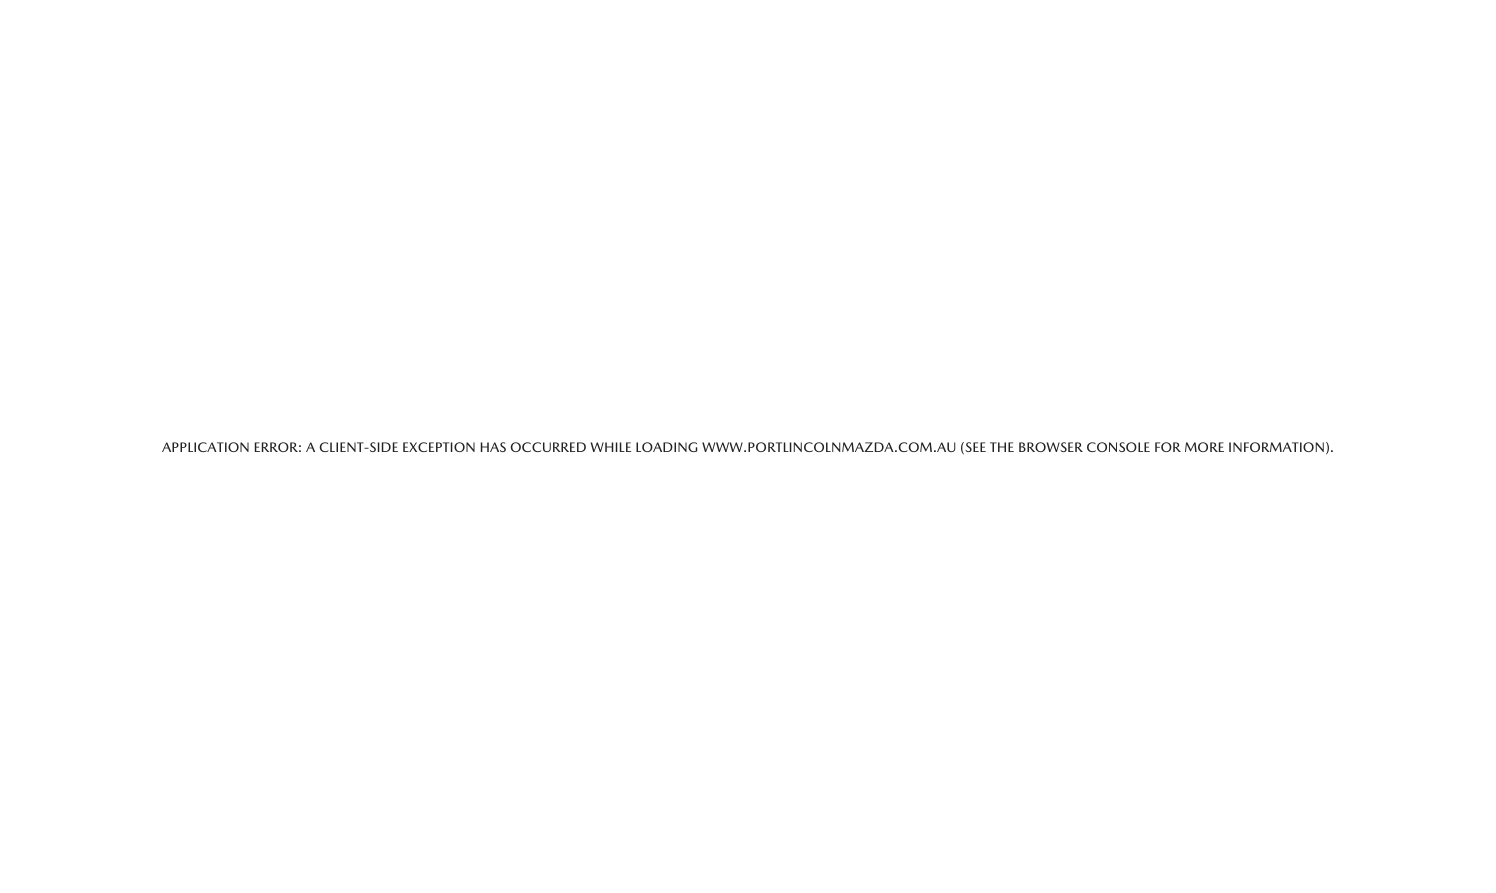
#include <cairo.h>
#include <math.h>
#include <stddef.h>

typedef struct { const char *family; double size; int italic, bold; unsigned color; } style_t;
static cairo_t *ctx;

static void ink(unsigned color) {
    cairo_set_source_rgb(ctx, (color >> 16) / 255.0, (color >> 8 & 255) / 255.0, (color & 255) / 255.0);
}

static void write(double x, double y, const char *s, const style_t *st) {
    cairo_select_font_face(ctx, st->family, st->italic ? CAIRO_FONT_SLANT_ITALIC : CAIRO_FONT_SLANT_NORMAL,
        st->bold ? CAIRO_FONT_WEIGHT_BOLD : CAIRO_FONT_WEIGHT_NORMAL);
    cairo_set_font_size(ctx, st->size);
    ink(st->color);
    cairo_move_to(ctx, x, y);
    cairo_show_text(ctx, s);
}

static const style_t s1 = {"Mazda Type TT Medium", 14, 0, 0, 0x222222};

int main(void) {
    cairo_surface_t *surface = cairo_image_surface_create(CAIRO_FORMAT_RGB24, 1496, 893);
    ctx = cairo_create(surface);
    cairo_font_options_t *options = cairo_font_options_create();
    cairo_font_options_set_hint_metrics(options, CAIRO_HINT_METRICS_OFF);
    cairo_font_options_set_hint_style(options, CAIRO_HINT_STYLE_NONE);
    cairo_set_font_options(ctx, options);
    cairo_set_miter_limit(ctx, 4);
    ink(0xffffff);
    cairo_paint(ctx);
    write(162, 452, "APPLICATION ERROR: A CLIENT-SIDE EXCEPTION HAS OCCURRED WHILE LOADING WWW.PORTLINCOLNMAZDA.COM.AU (SEE THE BROWSER CONSOLE FOR MORE INFORMATION).", &s1);
    cairo_surface_write_to_png(surface, "screenshot.png");
    cairo_font_options_destroy(options);
    cairo_destroy(ctx);
    cairo_surface_destroy(surface);
    return 0;
}
